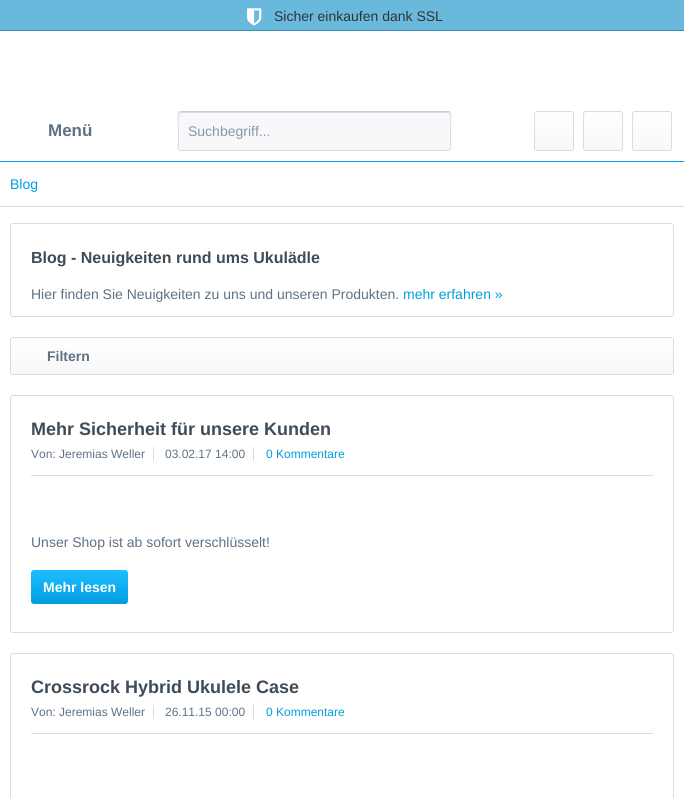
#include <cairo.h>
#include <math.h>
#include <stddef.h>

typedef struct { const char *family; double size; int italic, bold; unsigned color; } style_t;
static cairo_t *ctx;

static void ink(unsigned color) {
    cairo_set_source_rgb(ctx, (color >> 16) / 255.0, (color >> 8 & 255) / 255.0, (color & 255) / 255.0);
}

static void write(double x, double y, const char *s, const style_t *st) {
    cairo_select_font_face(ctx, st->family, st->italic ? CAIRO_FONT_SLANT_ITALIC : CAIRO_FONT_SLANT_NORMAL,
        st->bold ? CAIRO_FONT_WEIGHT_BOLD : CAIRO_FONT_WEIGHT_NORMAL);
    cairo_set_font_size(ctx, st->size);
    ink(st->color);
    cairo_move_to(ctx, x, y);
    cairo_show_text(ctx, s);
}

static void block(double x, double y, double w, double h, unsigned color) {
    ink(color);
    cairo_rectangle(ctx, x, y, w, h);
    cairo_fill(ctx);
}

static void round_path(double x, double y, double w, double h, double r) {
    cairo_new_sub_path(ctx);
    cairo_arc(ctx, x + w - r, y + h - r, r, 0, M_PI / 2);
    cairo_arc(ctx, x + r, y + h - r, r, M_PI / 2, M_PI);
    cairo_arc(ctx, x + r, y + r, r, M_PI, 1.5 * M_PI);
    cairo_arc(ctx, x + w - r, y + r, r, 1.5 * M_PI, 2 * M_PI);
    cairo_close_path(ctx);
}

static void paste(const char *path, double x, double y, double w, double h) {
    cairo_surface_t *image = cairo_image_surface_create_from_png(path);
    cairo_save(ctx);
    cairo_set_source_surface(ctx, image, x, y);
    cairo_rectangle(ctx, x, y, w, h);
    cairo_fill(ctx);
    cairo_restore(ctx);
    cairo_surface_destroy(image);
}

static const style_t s1 = {"Liberation Sans", 14, 0, 0, 0x333333};
static const style_t s2 = {"Liberation Sans", 17, 0, 1, 0x5f7285};
static const style_t s3 = {"Liberation Sans", 14, 0, 0, 0x8798a9};
static const style_t s4 = {"Liberation Sans", 14, 0, 0, 0x009ee0};
static const style_t s5 = {"Liberation Sans", 16, 0, 1, 0x3f4c58};
static const style_t s6 = {"Liberation Sans", 14, 0, 0, 0x5f7285};
static const style_t s7 = {"Liberation Sans", 14, 0, 1, 0x5f7285};
static const style_t s8 = {"Liberation Sans", 18, 0, 1, 0x3f4c58};
static const style_t s9 = {"Liberation Sans", 12, 0, 0, 0x5f7285};
static const style_t s10 = {"Liberation Sans", 12, 0, 0, 0x009ee0};
static const style_t s11 = {"Liberation Sans", 14, 0, 1, 0xffffff};

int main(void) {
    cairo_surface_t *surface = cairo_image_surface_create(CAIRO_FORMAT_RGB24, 684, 798);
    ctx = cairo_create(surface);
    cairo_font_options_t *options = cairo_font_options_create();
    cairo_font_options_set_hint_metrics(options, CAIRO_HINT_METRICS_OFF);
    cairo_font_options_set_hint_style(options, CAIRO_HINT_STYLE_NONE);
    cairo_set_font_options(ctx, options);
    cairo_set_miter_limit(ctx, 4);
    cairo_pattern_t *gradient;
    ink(0xffffff);
    cairo_paint(ctx);
    block(0, 161, 684, 1, 0x009ee0);
    block(0, 0, 684, 30, 0x69b9dc);
    block(0, 30, 684, 1, 0x398cad);
    paste("pic1.png", 247, 8, 15, 18);
    write(274, 21, "Sicher einkaufen dank SSL", &s1);
    write(48, 136, "Menü", &s2);
    ink(0xf8f8fa);
    round_path(178, 111, 273, 40, 3);
    cairo_fill(ctx);
    ink(0xdadae5);
    cairo_new_path(ctx);
    cairo_move_to(ctx, 181, 113);
    cairo_line_to(ctx, 448, 113);
    cairo_curve_to(ctx, 449, 113, 450, 114, 450, 115);
    cairo_line_to(ctx, 450, 113);
    cairo_line_to(ctx, 448, 112);
    cairo_line_to(ctx, 181, 112);
    cairo_curve_to(ctx, 179, 112, 179, 114, 179, 115);
    cairo_curve_to(ctx, 179, 114, 180, 113, 181, 113);
    cairo_close_path(ctx);
    cairo_fill(ctx);
    cairo_new_path(ctx);
    cairo_move_to(ctx, 179, 112);
    cairo_line_to(ctx, 181, 111.5);
    cairo_line_to(ctx, 448.5, 111.5);
    cairo_line_to(ctx, 450, 112);
    ink(0xcbcbdb);
    cairo_set_line_width(ctx, 1);
    cairo_stroke(ctx);
    cairo_new_path(ctx);
    cairo_move_to(ctx, 450, 112);
    cairo_curve_to(ctx, 451.5, 114, 450.5, 128, 450.5, 131);
    cairo_line_to(ctx, 450.5, 142.5);
    cairo_curve_to(ctx, 450.5, 144, 452, 150.5, 448, 150.5);
    cairo_line_to(ctx, 181, 150.5);
    cairo_curve_to(ctx, 177, 150.5, 178.5, 144, 178.5, 142.5);
    cairo_line_to(ctx, 178.5, 131);
    cairo_curve_to(ctx, 178.5, 128, 177.5, 114, 179, 112);
    ink(0xdadae5);
    cairo_stroke(ctx);
    write(188, 136, "Suchbegriff...", &s3);
    gradient = cairo_pattern_create_linear(554, 112, 554, 150);
    cairo_pattern_add_color_stop_rgba(gradient, 0, 1, 1, 1, 1);
    cairo_pattern_add_color_stop_rgba(gradient, 1, 0.973, 0.973, 0.98, 1);
    cairo_set_source(ctx, gradient);
    cairo_pattern_destroy(gradient);
    round_path(535, 112, 38, 38, 2);
    cairo_fill(ctx);
    round_path(534.5, 111.5, 39, 39, 2.5);
    ink(0xdadae5);
    cairo_stroke(ctx);
    gradient = cairo_pattern_create_linear(603, 112, 603, 150);
    cairo_pattern_add_color_stop_rgba(gradient, 0, 1, 1, 1, 1);
    cairo_pattern_add_color_stop_rgba(gradient, 1, 0.973, 0.973, 0.98, 1);
    cairo_set_source(ctx, gradient);
    cairo_pattern_destroy(gradient);
    round_path(584, 112, 38, 38, 2);
    cairo_fill(ctx);
    round_path(583.5, 111.5, 39, 39, 2.5);
    ink(0xdadae5);
    cairo_stroke(ctx);
    gradient = cairo_pattern_create_linear(652, 112, 652, 150);
    cairo_pattern_add_color_stop_rgba(gradient, 0, 1, 1, 1, 1);
    cairo_pattern_add_color_stop_rgba(gradient, 1, 0.973, 0.973, 0.98, 1);
    cairo_set_source(ctx, gradient);
    cairo_pattern_destroy(gradient);
    round_path(633, 112, 38, 38, 2);
    cairo_fill(ctx);
    round_path(632.5, 111.5, 39, 39, 2.5);
    ink(0xdadae5);
    cairo_stroke(ctx);
    block(0, 206, 684, 1, 0xdadae5);
    write(10, 189, "Blog", &s4);
    round_path(10.5, 223.5, 663, 93, 2.5);
    ink(0xdadae5);
    cairo_stroke(ctx);
    write(31, 263, "Blog - Neuigkeiten rund ums Ukulädle", &s5);
    write(31, 299, "Hier finden Sie Neuigkeiten zu uns und unseren Produkten.", &s6);
    write(403, 299, "mehr erfahren »", &s4);
    gradient = cairo_pattern_create_linear(342, 338, 342, 374);
    cairo_pattern_add_color_stop_rgba(gradient, 0, 1, 1, 1, 1);
    cairo_pattern_add_color_stop_rgba(gradient, 1, 0.973, 0.973, 0.98, 1);
    cairo_set_source(ctx, gradient);
    cairo_pattern_destroy(gradient);
    round_path(11, 338, 662, 36, 2);
    cairo_fill(ctx);
    round_path(10.5, 337.5, 663, 37, 2.5);
    ink(0xdadae5);
    cairo_stroke(ctx);
    write(47, 361, "Filtern", &s7);
    round_path(10.5, 395.5, 663, 237, 2.5);
    ink(0xdadae5);
    cairo_stroke(ctx);
    write(31, 435, "Mehr Sicherheit für unsere Kunden", &s8);
    block(31, 475, 622, 1, 0xdadae5);
    block(153, 447, 1, 14, 0xdadae5);
    write(31, 458, "Von: Jeremias Weller", &s9);
    block(253, 447, 1, 14, 0xdadae5);
    write(165, 458, "03.02.17 14:00", &s9);
    write(266, 458, "0 Kommentare", &s10);
    write(31, 547, "Unser Shop ist ab sofort verschlüsselt!", &s6);
    gradient = cairo_pattern_create_linear(80, 570, 80, 604);
    cairo_pattern_add_color_stop_rgba(gradient, 0, 0.118, 0.741, 1, 1);
    cairo_pattern_add_color_stop_rgba(gradient, 1, 0, 0.62, 0.878, 1);
    cairo_set_source(ctx, gradient);
    cairo_pattern_destroy(gradient);
    round_path(31, 570, 97, 34, 3);
    cairo_fill(ctx);
    write(43, 592, "Mehr lesen", &s11);
    round_path(10.5, 653.5, 663, 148, 2.5);
    ink(0xdadae5);
    cairo_stroke(ctx);
    write(31, 693, "Crossrock Hybrid Ukulele Case", &s8);
    block(31, 733, 622, 1, 0xdadae5);
    block(153, 705, 1, 14, 0xdadae5);
    write(31, 716, "Von: Jeremias Weller", &s9);
    block(253, 705, 1, 14, 0xdadae5);
    write(165, 716, "26.11.15 00:00", &s9);
    write(266, 716, "0 Kommentare", &s10);
    cairo_surface_write_to_png(surface, "screenshot.png");
    cairo_font_options_destroy(options);
    cairo_destroy(ctx);
    cairo_surface_destroy(surface);
    return 0;
}
